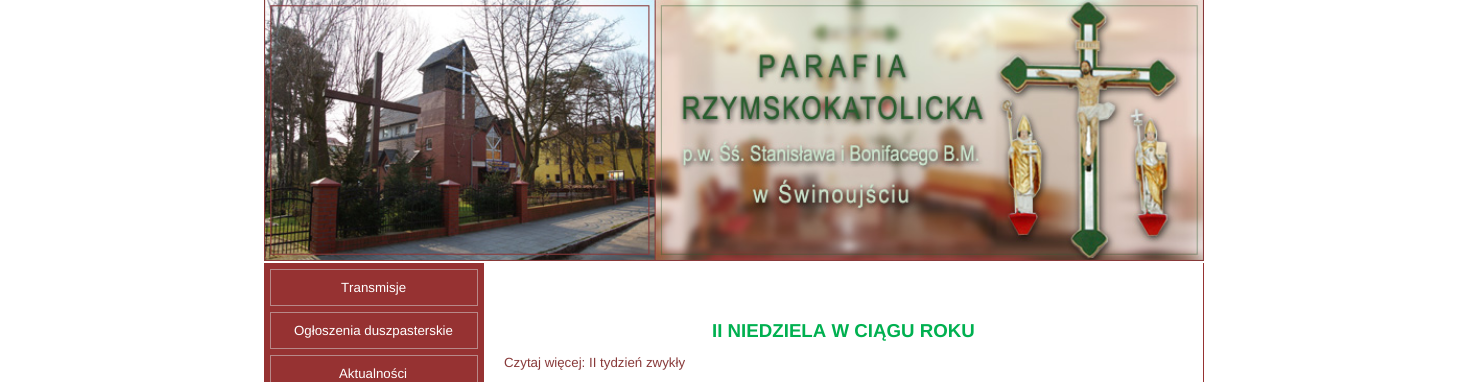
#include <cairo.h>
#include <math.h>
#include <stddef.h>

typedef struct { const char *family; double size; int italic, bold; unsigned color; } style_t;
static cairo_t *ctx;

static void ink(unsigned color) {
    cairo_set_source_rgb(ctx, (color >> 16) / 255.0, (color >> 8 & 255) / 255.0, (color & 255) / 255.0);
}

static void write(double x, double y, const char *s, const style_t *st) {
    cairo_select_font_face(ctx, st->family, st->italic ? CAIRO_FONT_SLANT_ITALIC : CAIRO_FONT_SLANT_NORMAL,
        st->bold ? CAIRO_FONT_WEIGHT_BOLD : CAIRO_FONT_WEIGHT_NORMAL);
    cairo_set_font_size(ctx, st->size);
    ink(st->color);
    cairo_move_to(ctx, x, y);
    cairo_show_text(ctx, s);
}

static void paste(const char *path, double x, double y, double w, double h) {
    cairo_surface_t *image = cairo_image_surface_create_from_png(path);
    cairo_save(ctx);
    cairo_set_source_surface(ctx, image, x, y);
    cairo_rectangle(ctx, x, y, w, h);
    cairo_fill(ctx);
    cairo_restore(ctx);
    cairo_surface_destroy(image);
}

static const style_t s1 = {"Liberation Sans", 13.3, 0, 0, 0xffffff};
static const style_t s2 = {"Liberation Sans", 18.7, 0, 1, 0x00b050};
static const style_t s3 = {"Liberation Sans", 13.3, 0, 0, 0x883939};

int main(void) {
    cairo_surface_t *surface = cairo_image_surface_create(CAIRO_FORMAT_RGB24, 1467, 382);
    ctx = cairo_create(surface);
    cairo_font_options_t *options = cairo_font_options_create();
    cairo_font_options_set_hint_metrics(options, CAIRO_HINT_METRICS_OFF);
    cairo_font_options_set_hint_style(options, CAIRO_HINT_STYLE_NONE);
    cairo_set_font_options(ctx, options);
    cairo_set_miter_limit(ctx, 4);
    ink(0xffffff);
    cairo_paint(ctx);
    paste("pic1.png", 264, 263, 940, 119);
    paste("pic2.png", 264, 0, 940, 261);
    cairo_rectangle(ctx, 270.5, 269.5, 207, 36);
    ink(0xb88888);
    cairo_set_line_width(ctx, 1);
    cairo_stroke(ctx);
    write(341, 292, "Transmisje", &s1);
    cairo_rectangle(ctx, 270.5, 312.5, 207, 36);
    ink(0xb88888);
    cairo_stroke(ctx);
    write(294, 335, "Ogłoszenia duszpasterskie", &s1);
    cairo_rectangle(ctx, 270.5, 355.5, 207, 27);
    ink(0xb88888);
    cairo_stroke(ctx);
    write(339, 378, "Aktualności", &s1);
    write(712, 337, "II NIEDZIELA W CIĄGU ROKU", &s2);
    write(504, 367, "Czytaj więcej: II tydzień zwykły", &s3);
    cairo_surface_write_to_png(surface, "screenshot.png");
    cairo_font_options_destroy(options);
    cairo_destroy(ctx);
    cairo_surface_destroy(surface);
    return 0;
}
